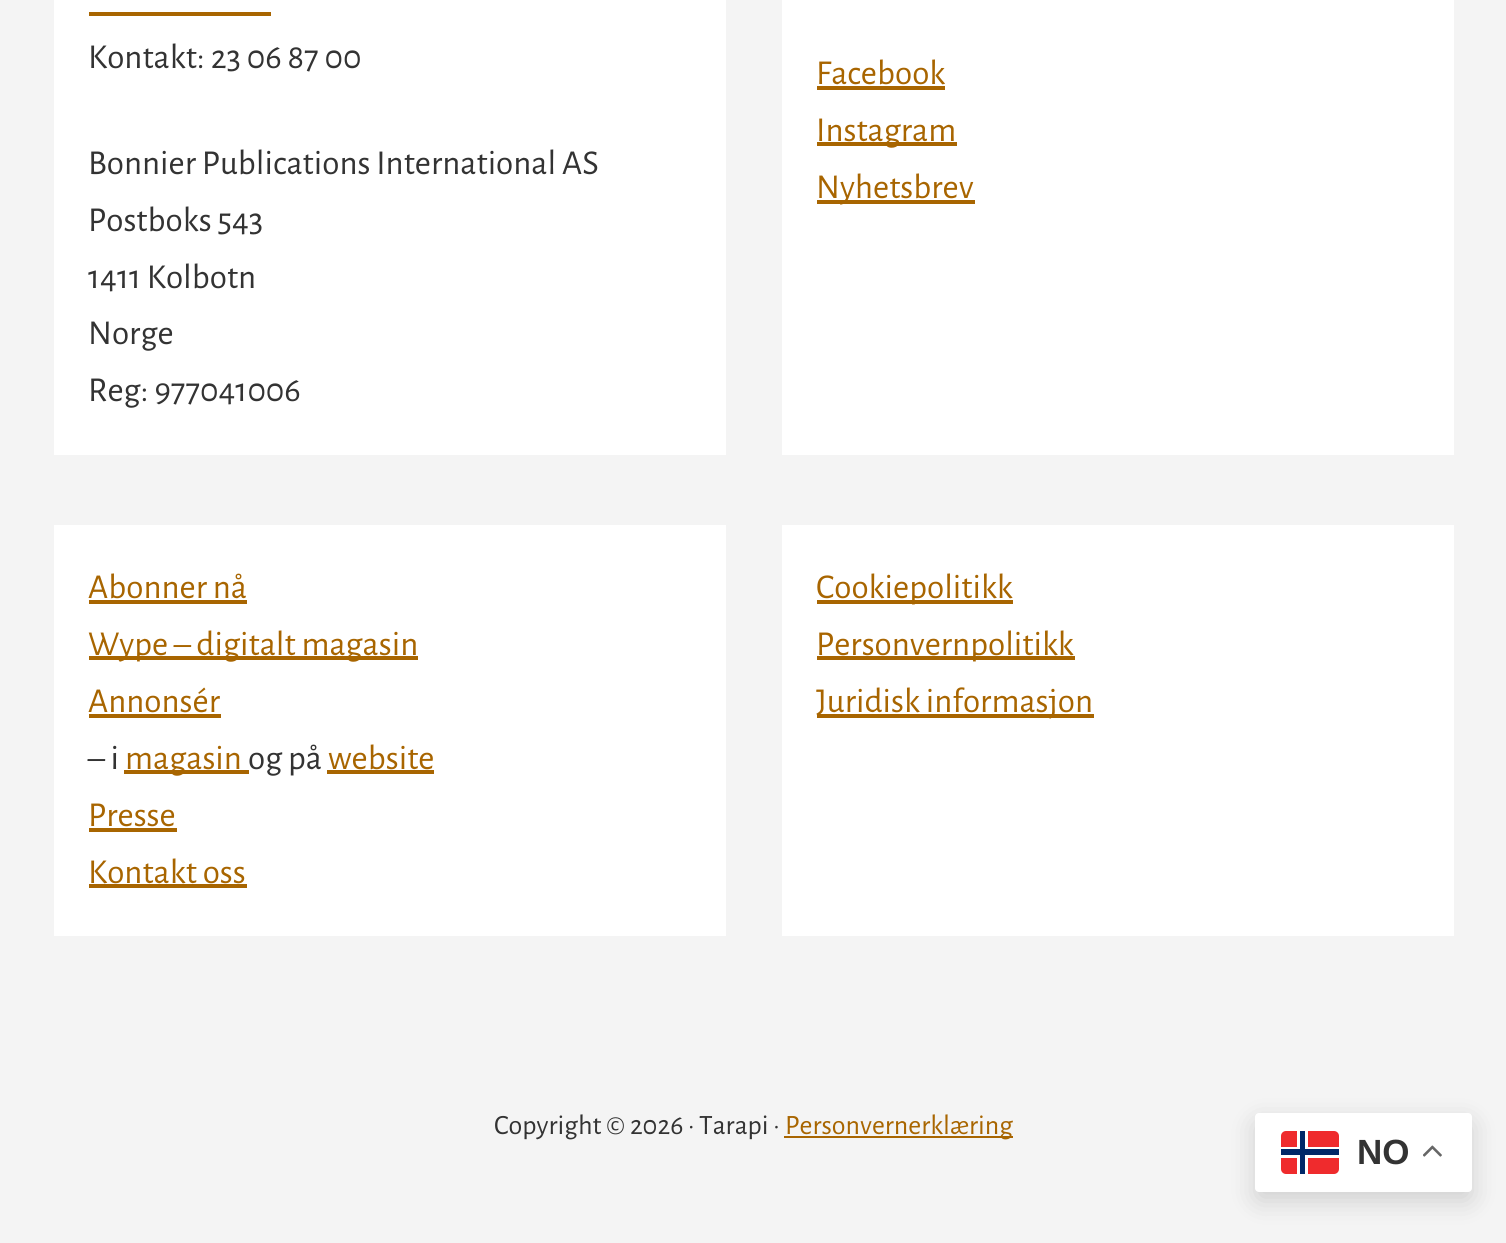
#include <cairo.h>
#include <math.h>
#include <stddef.h>

typedef struct { const char *family; double size; int italic, bold; unsigned color; } style_t;
static cairo_t *ctx;

static void ink(unsigned color) {
    cairo_set_source_rgb(ctx, (color >> 16) / 255.0, (color >> 8 & 255) / 255.0, (color & 255) / 255.0);
}

static void write(double x, double y, const char *s, const style_t *st) {
    cairo_select_font_face(ctx, st->family, st->italic ? CAIRO_FONT_SLANT_ITALIC : CAIRO_FONT_SLANT_NORMAL,
        st->bold ? CAIRO_FONT_WEIGHT_BOLD : CAIRO_FONT_WEIGHT_NORMAL);
    cairo_set_font_size(ctx, st->size);
    ink(st->color);
    cairo_move_to(ctx, x, y);
    cairo_show_text(ctx, s);
}

static void block(double x, double y, double w, double h, unsigned color) {
    ink(color);
    cairo_rectangle(ctx, x, y, w, h);
    cairo_fill(ctx);
}

static void round_path(double x, double y, double w, double h, double r) {
    cairo_new_sub_path(ctx);
    cairo_arc(ctx, x + w - r, y + h - r, r, 0, M_PI / 2);
    cairo_arc(ctx, x + r, y + h - r, r, M_PI / 2, M_PI);
    cairo_arc(ctx, x + r, y + r, r, M_PI, 1.5 * M_PI);
    cairo_arc(ctx, x + w - r, y + r, r, 1.5 * M_PI, 2 * M_PI);
    cairo_close_path(ctx);
}

static void blur_box(double x, double y, double w, double h, double r, double blur, double alpha) {
    cairo_push_group_with_content(ctx, CAIRO_CONTENT_ALPHA);
    cairo_set_operator(ctx, CAIRO_OPERATOR_SOURCE);
    for (int i = 15; i >= -15 && fmin(w, h) + blur * i / 3 > 0; i -= 2) {
        double e = blur * i / 6;
        cairo_set_source_rgba(ctx, 0, 0, 0, alpha * erfc((i - 1) / 8.5) / 2);
        round_path(x - e, y - e, w + 2 * e, h + 2 * e, fmax(0, fmin(r + e + blur * .6, fmin(w, h) / 2 + e)));
        cairo_fill(ctx);
    }
    cairo_pattern_t *soft = cairo_pop_group(ctx);
    cairo_mask(ctx, soft);
    cairo_pattern_destroy(soft);
}

static void paste(const char *path, double x, double y, double w, double h) {
    cairo_surface_t *image = cairo_image_surface_create_from_png(path);
    cairo_save(ctx);
    cairo_set_source_surface(ctx, image, x, y);
    cairo_rectangle(ctx, x, y, w, h);
    cairo_fill(ctx);
    cairo_restore(ctx);
    cairo_surface_destroy(image);
}

static const style_t s1 = {"Alegreya Sans", 35, 0, 0, 0x333333};
static const style_t s2 = {"Alegreya Sans", 35, 0, 0, 0xa86500};
static const style_t s3 = {"Alegreya Sans", 28, 0, 0, 0x333333};
static const style_t s4 = {"Alegreya Sans", 28, 0, 0, 0xa86500};
static const style_t s5 = {"Liberation Sans", 35, 0, 1, 0x333333};

int main(void) {
    cairo_surface_t *surface = cairo_image_surface_create(CAIRO_FORMAT_RGB24, 1506, 1243);
    ctx = cairo_create(surface);
    cairo_font_options_t *options = cairo_font_options_create();
    cairo_font_options_set_hint_metrics(options, CAIRO_HINT_METRICS_OFF);
    cairo_font_options_set_hint_style(options, CAIRO_HINT_STYLE_NONE);
    cairo_set_font_options(ctx, options);
    cairo_set_miter_limit(ctx, 4);
    ink(0xf4f4f4);
    cairo_paint(ctx);
    block(54, 0, 672, 455, 0xffffff);
    block(89, 12, 182, 4, 0xa86500);
    write(88, 68, "Kontakt: 23 06 87 00", &s1);
    write(88, 174, "Bonnier Publications International AS", &s1);
    write(88, 231, "Postboks 543", &s1);
    write(88, 288, "1411 Kolbotn", &s1);
    write(88, 344, "Norge", &s1);
    write(88, 401, "Reg: 977041006", &s1);
    block(782, 0, 672, 455, 0xffffff);
    write(816, 84, "Facebook", &s2);
    block(817, 86, 128, 4, 0xa86500);
    block(817, 142, 140, 4, 0xa86500);
    write(816, 141, "Instagram", &s2);
    block(817, 200, 158, 4, 0xa86500);
    write(816, 198, "Nyhetsbrev", &s2);
    block(54, 525, 672, 411, 0xffffff);
    write(88, 598, "Abonner nå", &s2);
    block(89, 600, 158, 4, 0xa86500);
    block(89, 656, 329, 4, 0xa86500);
    write(88, 655, "Wype – digitalt magasin", &s2);
    write(88, 712, "Annonsér", &s2);
    block(89, 714, 132, 4, 0xa86500);
    write(88, 769, "– i", &s1);
    block(124, 770, 125, 4, 0xa86500);
    write(125, 769, "magasin", &s2);
    write(248, 769, "og på", &s1);
    write(328, 769, "website", &s2);
    block(327, 770, 107, 4, 0xa86500);
    write(88, 826, "Presse", &s2);
    block(89, 828, 88, 4, 0xa86500);
    write(88, 883, "Kontakt oss", &s2);
    block(89, 884, 158, 4, 0xa86500);
    block(782, 525, 672, 411, 0xffffff);
    block(817, 600, 196, 4, 0xa86500);
    write(816, 598, "Cookiepolitikk", &s2);
    block(817, 656, 258, 4, 0xa86500);
    write(816, 655, "Personvernpolitikk", &s2);
    block(817, 714, 277, 4, 0xa86500);
    write(816, 712, "Juridisk informasjon", &s2);
    write(494, 1134, "Copyright © 2026 · Tarapi ·", &s3);
    block(784, 1136, 229, 2, 0xa86500);
    write(785, 1134, "Personvernerklæring", &s4);
    ink(0x000000);
    blur_box(1255, 1122, 217, 79, 4, 13, 0.15);
    ink(0xffffff);
    round_path(1255, 1113, 217, 79, 4);
    cairo_fill(ctx);
    ink(0xef2b2d);
    round_path(1281, 1131, 58, 43, 5);
    cairo_fill(ctx);
    block(1297, 1131, 11, 43, 0xffffff);
    block(1281, 1147, 58, 11, 0xffffff);
    block(1300, 1131, 5, 43, 0x002868);
    block(1281, 1149, 58, 6, 0x002868);
    write(1357, 1164, "NO", &s5);
    paste("pic1.png", 1423, 1145, 19, 12);
    cairo_surface_write_to_png(surface, "screenshot.png");
    cairo_font_options_destroy(options);
    cairo_destroy(ctx);
    cairo_surface_destroy(surface);
    return 0;
}
